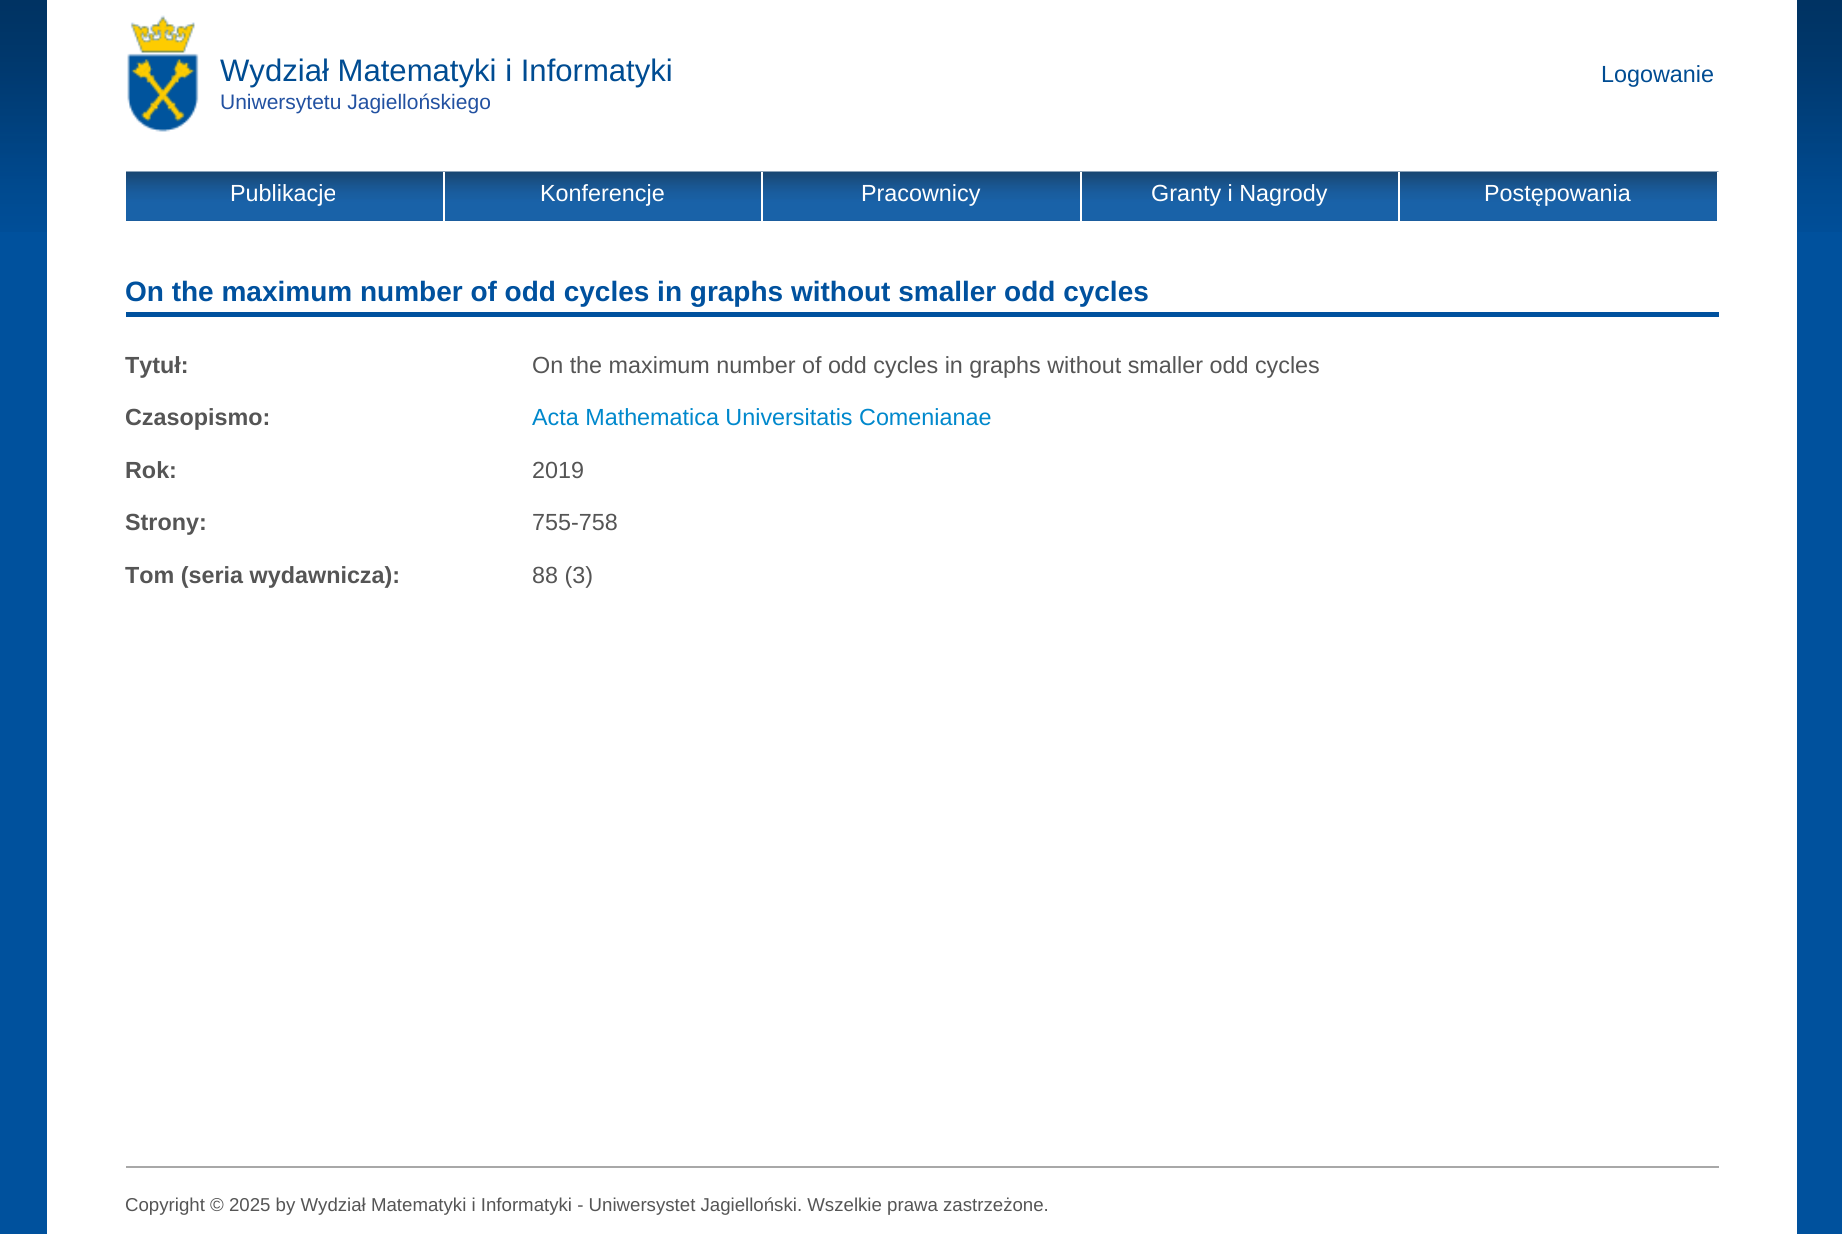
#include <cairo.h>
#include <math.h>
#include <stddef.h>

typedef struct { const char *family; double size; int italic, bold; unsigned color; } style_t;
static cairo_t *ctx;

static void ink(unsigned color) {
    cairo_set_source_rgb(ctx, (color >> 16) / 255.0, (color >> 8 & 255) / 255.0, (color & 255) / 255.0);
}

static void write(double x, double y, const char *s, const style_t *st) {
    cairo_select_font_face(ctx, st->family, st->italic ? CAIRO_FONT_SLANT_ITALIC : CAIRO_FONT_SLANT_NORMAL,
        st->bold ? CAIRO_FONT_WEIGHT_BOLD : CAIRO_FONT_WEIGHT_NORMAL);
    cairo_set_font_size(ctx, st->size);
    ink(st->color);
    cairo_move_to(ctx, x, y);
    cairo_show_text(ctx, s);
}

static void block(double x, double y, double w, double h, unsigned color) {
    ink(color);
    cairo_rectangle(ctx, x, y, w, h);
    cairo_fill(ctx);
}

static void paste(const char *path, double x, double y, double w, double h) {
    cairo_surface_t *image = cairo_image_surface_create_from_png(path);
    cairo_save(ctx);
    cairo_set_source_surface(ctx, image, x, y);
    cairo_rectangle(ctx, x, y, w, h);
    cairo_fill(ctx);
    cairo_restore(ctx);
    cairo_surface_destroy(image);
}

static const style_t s1 = {"Liberation Sans", 31.1, 0, 0, 0x004c92};
static const style_t s2 = {"Liberation Sans", 23.35, 0, 0, 0x004c92};
static const style_t s3 = {"Liberation Sans", 21, 0, 0, 0x2251a1};
static const style_t s4 = {"Liberation Sans", 23.35, 0, 0, 0xffffff};
static const style_t s5 = {"Liberation Sans", 28, 0, 1, 0x00519e};
static const style_t s6 = {"Liberation Sans", 23.35, 0, 1, 0x555555};
static const style_t s7 = {"Liberation Sans", 23.35, 0, 0, 0x555555};
static const style_t s8 = {"Liberation Sans", 23.35, 0, 0, 0x0088cc};
static const style_t s9 = {"Liberation Sans", 18.65, 0, 0, 0x555555};

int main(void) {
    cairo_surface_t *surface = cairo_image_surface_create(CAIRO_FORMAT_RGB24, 1842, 1234);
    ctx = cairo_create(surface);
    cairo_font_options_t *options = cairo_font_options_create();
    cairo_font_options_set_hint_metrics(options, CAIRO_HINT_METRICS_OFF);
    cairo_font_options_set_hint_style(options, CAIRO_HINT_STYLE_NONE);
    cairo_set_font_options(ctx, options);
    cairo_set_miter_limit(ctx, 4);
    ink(0x00519d);
    cairo_paint(ctx);
    paste("pic1.png", 0, 0, 1842, 232);
    block(47, 0, 1750, 1234, 0xffffff);
    paste("pic2.png", 127, 15, 72, 117);
    write(220, 81, "Wydział Matematyki i Informatyki", &s1);
    write(1601, 82, "Logowanie", &s2);
    write(220, 109, "Uniwersytetu Jagiellońskiego", &s3);
    block(126, 220, 1591, 1, 0x00519d);
    paste("pic3.png", 126, 171, 1593, 50);
    block(443, 172, 2, 49, 0xffffff);
    write(230, 201, "Publikacje", &s4);
    block(761, 172, 2, 49, 0xffffff);
    write(540, 201, "Konferencje", &s4);
    block(1080, 172, 2, 49, 0xffffff);
    write(861, 201, "Pracownicy", &s4);
    block(1398, 172, 2, 49, 0xffffff);
    write(1151, 201, "Granty i Nagrody", &s4);
    block(1717, 172, 2, 49, 0xffffff);
    write(1484, 201, "Postępowania", &s4);
    block(126, 312, 1593, 5, 0x00519e);
    write(125, 301, "On the maximum number of odd cycles in graphs without smaller odd cycles", &s5);
    write(125, 373, "Tytuł:", &s6);
    write(532, 373, "On the maximum number of odd cycles in graphs without smaller odd cycles", &s7);
    write(125, 425, "Czasopismo:", &s6);
    write(532, 425, "Acta Mathematica Universitatis Comenianae", &s8);
    write(125, 478, "Rok:", &s6);
    write(532, 478, "2019", &s7);
    write(125, 530, "Strony:", &s6);
    write(532, 530, "755-758", &s7);
    write(125, 583, "Tom (seria wydawnicza):", &s6);
    write(532, 583, "88 (3)", &s7);
    block(126, 1166, 1593, 2, 0xa8a8a8);
    write(125, 1211, "Copyright © 2025 by Wydział Matematyki i Informatyki - Uniwersystet Jagielloński. Wszelkie prawa zastrzeżone.", &s9);
    cairo_surface_write_to_png(surface, "screenshot.png");
    cairo_font_options_destroy(options);
    cairo_destroy(ctx);
    cairo_surface_destroy(surface);
    return 0;
}
